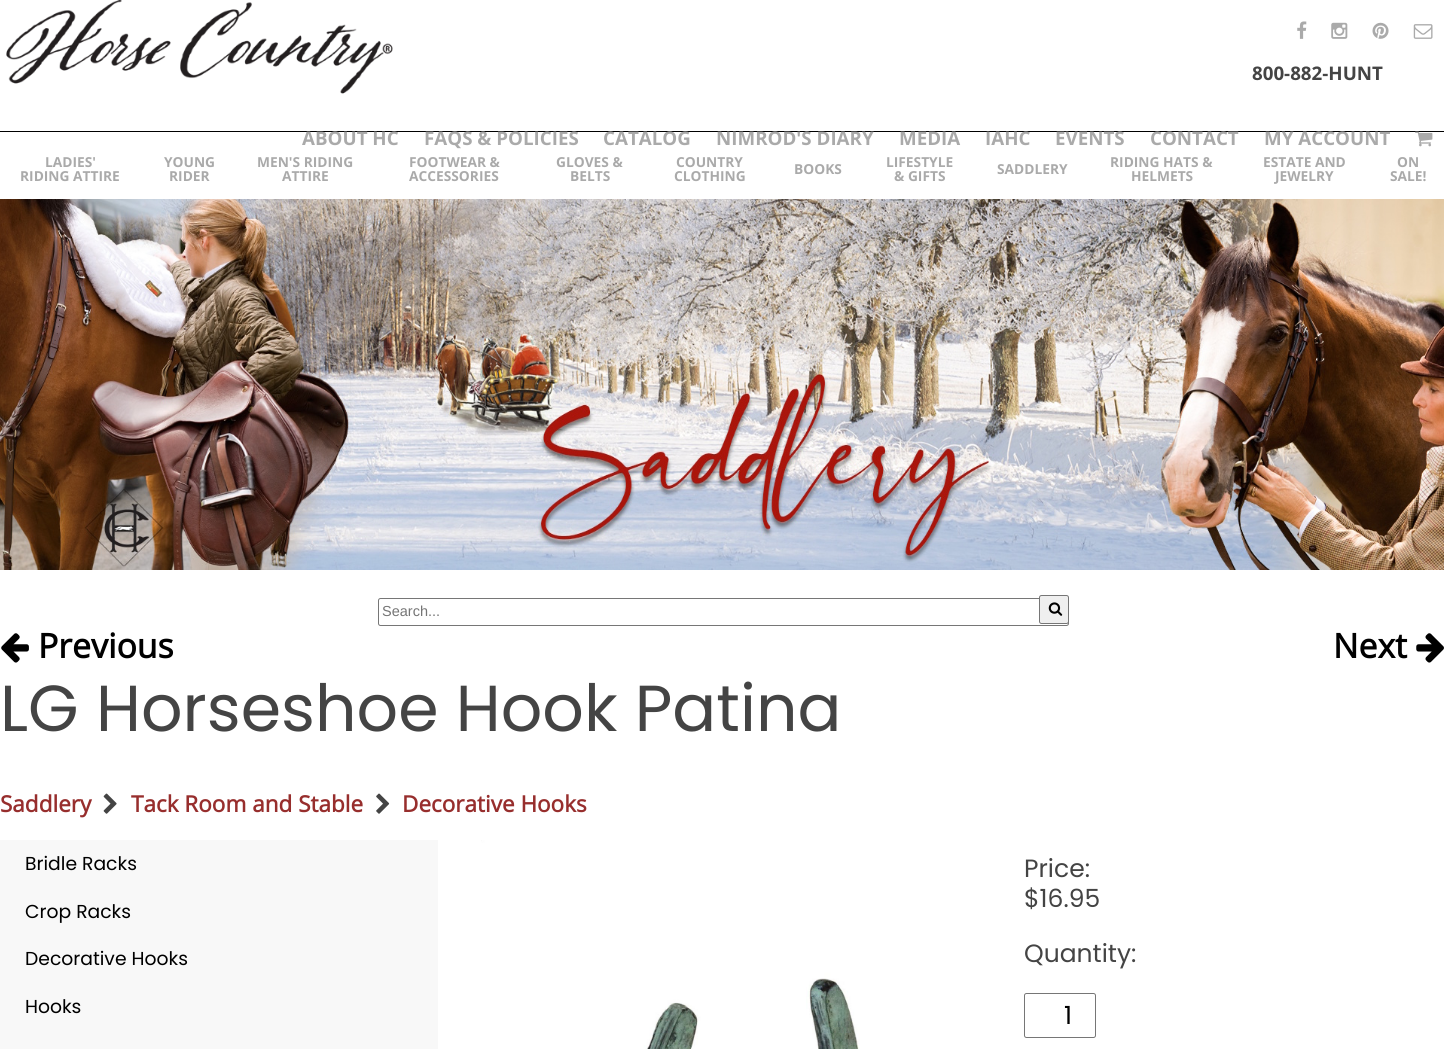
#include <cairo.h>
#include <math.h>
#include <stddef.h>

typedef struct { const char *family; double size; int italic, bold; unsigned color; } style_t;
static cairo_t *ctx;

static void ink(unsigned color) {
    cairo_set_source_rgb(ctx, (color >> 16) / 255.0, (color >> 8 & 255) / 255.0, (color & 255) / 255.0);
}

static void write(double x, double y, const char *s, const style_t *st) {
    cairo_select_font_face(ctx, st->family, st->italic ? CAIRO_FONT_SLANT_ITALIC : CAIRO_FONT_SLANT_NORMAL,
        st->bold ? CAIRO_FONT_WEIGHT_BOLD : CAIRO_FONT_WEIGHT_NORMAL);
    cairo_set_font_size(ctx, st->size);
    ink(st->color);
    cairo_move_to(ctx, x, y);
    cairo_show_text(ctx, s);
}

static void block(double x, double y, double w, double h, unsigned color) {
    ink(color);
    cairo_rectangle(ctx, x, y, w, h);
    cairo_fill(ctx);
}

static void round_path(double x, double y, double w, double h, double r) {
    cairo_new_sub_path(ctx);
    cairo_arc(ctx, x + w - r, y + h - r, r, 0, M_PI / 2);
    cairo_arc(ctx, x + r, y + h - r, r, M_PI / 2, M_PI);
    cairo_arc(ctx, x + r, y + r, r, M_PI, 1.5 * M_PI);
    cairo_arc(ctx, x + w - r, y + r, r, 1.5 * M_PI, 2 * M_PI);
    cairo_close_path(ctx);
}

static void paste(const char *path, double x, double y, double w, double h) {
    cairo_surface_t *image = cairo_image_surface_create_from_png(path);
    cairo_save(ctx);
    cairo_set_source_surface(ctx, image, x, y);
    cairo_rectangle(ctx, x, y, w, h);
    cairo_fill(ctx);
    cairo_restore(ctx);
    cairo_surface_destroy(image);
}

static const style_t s1 = {"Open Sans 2", 18.75, 0, 1, 0x444444};
static const style_t s2 = {"Open Sans 2", 18.75, 0, 1, 0xaaaaaa};
static const style_t s3 = {"Open Sans 2", 13.75, 0, 1, 0xaaaaaa};
static const style_t s4 = {"Liberation Sans", 14.5, 0, 0, 0x757575};
static const style_t s5 = {"Open Sans", 33.75, 0, 1, 0x000000};
static const style_t s6 = {"Poppins", 65, 0, 0, 0x444444};
static const style_t s7 = {"Open Sans", 22.5, 0, 1, 0x972e2d};
static const style_t s8 = {"Poppins", 18.75, 0, 0, 0x000000};
static const style_t s9 = {"Poppins", 25, 0, 0, 0x444444};
static const style_t s10 = {"Poppins", 25, 0, 0, 0x000000};

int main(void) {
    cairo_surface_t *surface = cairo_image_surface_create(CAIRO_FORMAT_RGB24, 1444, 1049);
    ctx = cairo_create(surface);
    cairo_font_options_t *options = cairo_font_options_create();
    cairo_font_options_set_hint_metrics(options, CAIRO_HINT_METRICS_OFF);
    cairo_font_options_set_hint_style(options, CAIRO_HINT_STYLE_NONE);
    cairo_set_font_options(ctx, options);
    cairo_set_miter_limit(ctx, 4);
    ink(0xffffff);
    cairo_paint(ctx);
    paste("pic1.png", 6, 0, 387, 94);
    paste("pic2.png", 1297, 21, 10, 18);
    paste("pic3.png", 1331, 22, 17, 17);
    paste("pic4.png", 1372, 22, 17, 17);
    paste("pic5.png", 1413, 24, 20, 15);
    write(1252, 80, "800-882-HUNT", &s1);
    block(0, 131, 1444, 1, 0x000000);
    write(302, 145, "ABOUT HC", &s2);
    write(424, 145, "FAQS & POLICIES", &s2);
    write(603, 145, "CATALOG", &s2);
    write(716, 145, "NIMROD'S DIARY", &s2);
    write(899, 145, "MEDIA", &s2);
    write(985, 145, "IAHC", &s2);
    write(1055, 145, "EVENTS", &s2);
    write(1150, 145, "CONTACT", &s2);
    write(1264, 145, "MY ACCOUNT", &s2);
    paste("pic6.png", 1415, 131, 18, 16);
    write(45, 167, "LADIES'", &s3);
    write(20, 181, "RIDING ATTIRE", &s3);
    write(164, 167, "YOUNG", &s3);
    write(169, 181, "RIDER", &s3);
    write(257, 167, "MEN'S RIDING", &s3);
    write(282, 181, "ATTIRE", &s3);
    write(409, 167, "FOOTWEAR &", &s3);
    write(409, 181, "ACCESSORIES", &s3);
    write(556, 167, "GLOVES &", &s3);
    write(570, 181, "BELTS", &s3);
    write(676, 167, "COUNTRY", &s3);
    write(674, 181, "CLOTHING", &s3);
    write(794, 174, "BOOKS", &s3);
    write(886, 167, "LIFESTYLE", &s3);
    write(894, 181, "& GIFTS", &s3);
    write(997, 174, "SADDLERY", &s3);
    write(1110, 167, "RIDING HATS &", &s3);
    write(1131, 181, "HELMETS", &s3);
    write(1263, 167, "ESTATE AND", &s3);
    write(1275, 181, "JEWELRY", &s3);
    write(1397, 167, "ON", &s3);
    write(1390, 181, "SALE!", &s3);
    paste("pic7.png", 0, 199, 1444, 371);
    round_path(378.5, 598.5, 690, 27, 2);
    ink(0x767676);
    cairo_set_line_width(ctx, 1);
    cairo_stroke(ctx);
    write(382, 616, "Search...", &s4);
    ink(0xefefef);
    round_path(1039.5, 595.5, 29, 28, 2);
    cairo_fill_preserve(ctx);
    ink(0x767676);
    cairo_stroke(ctx);
    paste("pic8.png", 1048, 602, 15, 14);
    paste("pic9.png", 1, 633, 28, 30);
    write(38, 658, "Previous", &s5);
    write(1333, 658, "Next", &s5);
    paste("pic10.png", 1416, 633, 28, 30);
    write(0, 731, "LG Horseshoe Hook Patina", &s6);
    write(0, 812, "Saddlery", &s7);
    paste("pic11.png", 103, 793, 14, 21);
    write(131, 812, "Tack Room and Stable", &s7);
    paste("pic12.png", 376, 793, 14, 21);
    write(402, 812, "Decorative Hooks", &s7);
    block(0, 840, 438, 209, 0xf8f8f8);
    write(25, 870, "Bridle Racks", &s8);
    write(25, 918, "Crop Racks", &s8);
    write(25, 965, "Decorative Hooks", &s8);
    write(25, 1013, "Hooks", &s8);
    paste("pic13.png", 481, 840, 379, 209);
    write(1024, 877, "Price:", &s9);
    write(1024, 907, "$16.95", &s9);
    write(1024, 962, "Quantity:", &s9);
    round_path(1024.5, 993.5, 71, 44, 2);
    ink(0x767676);
    cairo_stroke(ctx);
    write(1064, 1024, "1", &s10);
    cairo_surface_write_to_png(surface, "screenshot.png");
    cairo_font_options_destroy(options);
    cairo_destroy(ctx);
    cairo_surface_destroy(surface);
    return 0;
}
